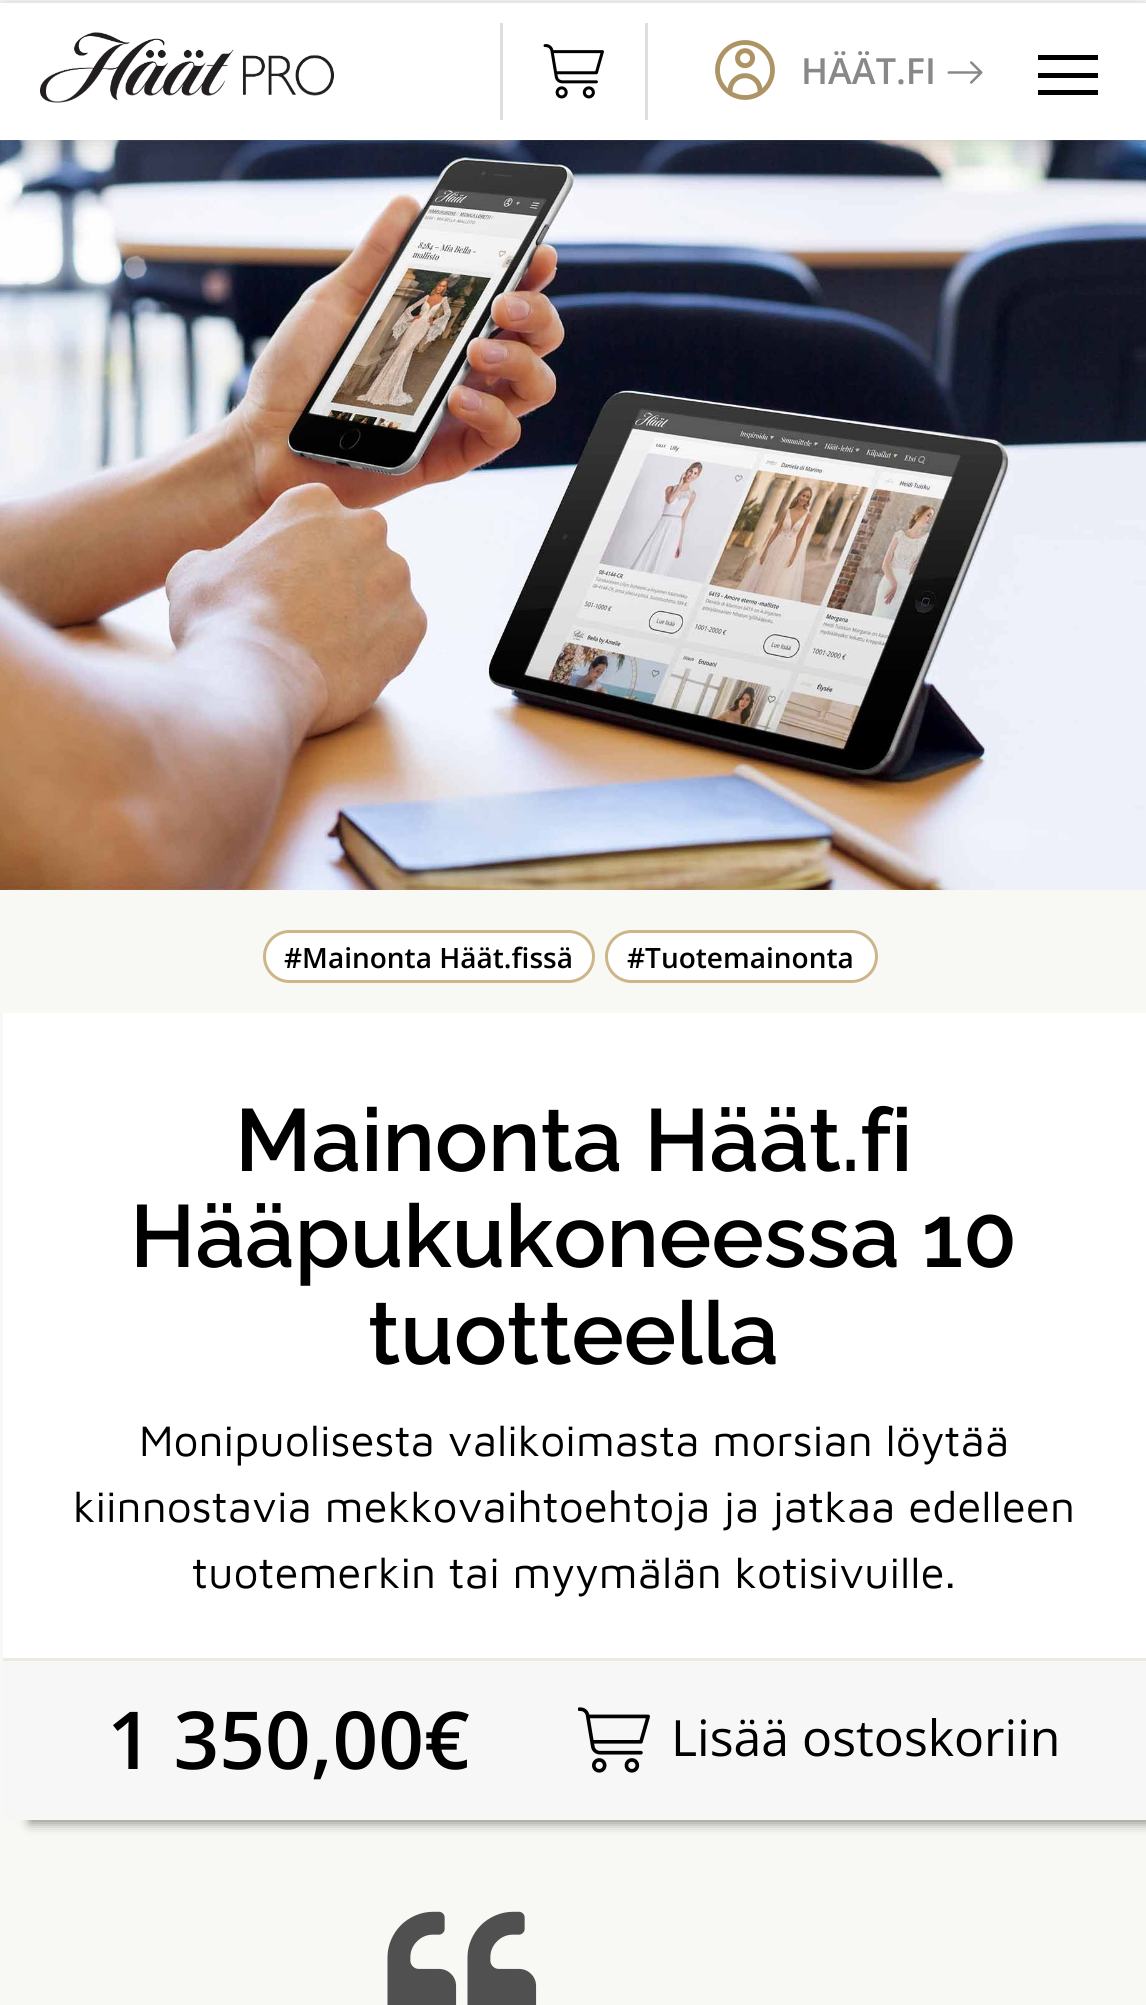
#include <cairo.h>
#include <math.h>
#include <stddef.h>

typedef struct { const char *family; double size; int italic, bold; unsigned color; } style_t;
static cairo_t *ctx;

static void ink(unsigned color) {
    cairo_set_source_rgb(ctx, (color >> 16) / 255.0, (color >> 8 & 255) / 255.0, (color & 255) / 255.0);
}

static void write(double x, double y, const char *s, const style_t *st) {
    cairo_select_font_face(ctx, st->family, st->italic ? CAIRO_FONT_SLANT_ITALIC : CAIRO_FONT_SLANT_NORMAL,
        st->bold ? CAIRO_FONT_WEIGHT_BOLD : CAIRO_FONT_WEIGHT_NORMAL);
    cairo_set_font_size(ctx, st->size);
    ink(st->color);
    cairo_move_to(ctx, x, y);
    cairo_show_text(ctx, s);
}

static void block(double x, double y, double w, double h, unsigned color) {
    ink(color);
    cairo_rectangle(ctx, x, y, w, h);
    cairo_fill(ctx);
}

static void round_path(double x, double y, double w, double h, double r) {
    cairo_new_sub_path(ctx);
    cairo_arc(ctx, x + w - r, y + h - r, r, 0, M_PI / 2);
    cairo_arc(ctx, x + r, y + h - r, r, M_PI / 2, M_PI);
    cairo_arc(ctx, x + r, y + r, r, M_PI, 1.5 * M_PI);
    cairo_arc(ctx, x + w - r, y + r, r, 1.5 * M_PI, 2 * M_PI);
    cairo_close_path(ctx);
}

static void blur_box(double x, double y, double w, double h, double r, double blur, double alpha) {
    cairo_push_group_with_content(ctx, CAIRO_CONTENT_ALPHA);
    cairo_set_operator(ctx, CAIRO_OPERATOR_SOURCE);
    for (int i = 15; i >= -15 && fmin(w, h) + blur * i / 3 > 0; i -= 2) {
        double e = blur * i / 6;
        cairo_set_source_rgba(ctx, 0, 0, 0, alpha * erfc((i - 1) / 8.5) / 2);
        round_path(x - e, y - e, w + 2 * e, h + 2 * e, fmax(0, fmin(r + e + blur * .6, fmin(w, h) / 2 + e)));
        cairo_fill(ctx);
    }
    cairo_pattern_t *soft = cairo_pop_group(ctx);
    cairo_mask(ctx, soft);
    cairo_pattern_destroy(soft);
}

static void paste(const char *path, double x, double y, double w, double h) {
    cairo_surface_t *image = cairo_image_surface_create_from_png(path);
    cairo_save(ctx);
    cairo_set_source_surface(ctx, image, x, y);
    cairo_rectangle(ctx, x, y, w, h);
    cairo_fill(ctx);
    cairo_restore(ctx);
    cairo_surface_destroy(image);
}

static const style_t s1 = {"Open Sans SemiBold", 36, 0, 0, 0x888888};
static const style_t s2 = {"Open Sans SemiBold", 28, 0, 0, 0x000000};
static const style_t s3 = {"Raleway SemiBold", 88, 0, 0, 0x000000};
static const style_t s4 = {"Maven Pro", 44, 0, 0, 0x000000};
static const style_t s5 = {"Open Sans SemiBold", 80, 0, 0, 0x000000};
static const style_t s6 = {"Open Sans", 50, 0, 0, 0x000000};

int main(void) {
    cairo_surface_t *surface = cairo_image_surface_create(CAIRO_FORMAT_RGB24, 1146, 2005);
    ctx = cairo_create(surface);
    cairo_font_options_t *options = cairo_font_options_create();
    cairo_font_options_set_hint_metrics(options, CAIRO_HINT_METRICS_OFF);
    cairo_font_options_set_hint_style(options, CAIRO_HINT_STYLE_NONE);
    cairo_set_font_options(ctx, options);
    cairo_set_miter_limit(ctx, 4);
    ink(0xffffff);
    cairo_paint(ctx);
    paste("pic6.png", 0, 140, 1146, 750);
    ink(0x000000);
    blur_box(0, 3, 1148, 137, 0, 12.5, 0.2);
    block(0, 3, 1146, 137, 0xffffff);
    paste("pic1.png", 40, 32, 295, 71);
    block(645, 23, 3, 97, 0xdedede);
    block(500, 23, 3, 97, 0xdedede);
    paste("pic2.png", 543, 44, 61, 55);
    paste("pic3.png", 715, 40, 60, 60);
    write(801, 84, "HÄÄT.FI", &s1);
    paste("pic4.png", 947, 61, 36, 23);
    block(1038, 73, 60, 5, 0x000000);
    block(1038, 55, 60, 5, 0x000000);
    block(1038, 90, 60, 5, 0x000000);
    block(0, 890, 1146, 1115, 0xf8f8f4);
    paste("pic5.png", 387, 1911, 150, 94);
    ink(0xffffff);
    round_path(264.5, 931.5, 329, 50, 25);
    cairo_fill_preserve(ctx);
    ink(0xcdb589);
    cairo_set_line_width(ctx, 3);
    cairo_stroke(ctx);
    write(284, 968, "#Mainonta Häät.fissä", &s2);
    ink(0xffffff);
    round_path(606.5, 931.5, 270, 50, 25);
    cairo_fill_preserve(ctx);
    ink(0xcdb589);
    cairo_stroke(ctx);
    write(627, 968, "#Tuotemainonta", &s2);
    ink(0x000000);
    blur_box(30, 1045, 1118, 778, 0, 6, 0.46);
    block(3, 1013, 1143, 645, 0xffffff);
    write(235, 1171, "Mainonta Häät.fi", &s3);
    write(130, 1267, "Hääpukukoneessa 10", &s3);
    write(368, 1364, "tuotteella", &s3);
    write(139, 1456, "Monipuolisesta valikoimasta morsian löytää", &s4);
    write(73, 1522, "kiinnostavia mekkovaihtoehtoja ja jatkaa edelleen", &s4);
    write(192, 1588, "tuotemerkin tai myymälän kotisivuille.", &s4);
    block(3, 1661, 1143, 159, 0xf7f7f7);
    block(3, 1658, 1143, 3, 0xeee8e2);
    write(107, 1769, "1 350,00€", &s5);
    paste("pic7.png", 578, 1707, 72, 66);
    write(671, 1756, "Lisää ostoskoriin", &s6);
    cairo_surface_write_to_png(surface, "screenshot.png");
    cairo_font_options_destroy(options);
    cairo_destroy(ctx);
    cairo_surface_destroy(surface);
    return 0;
}
